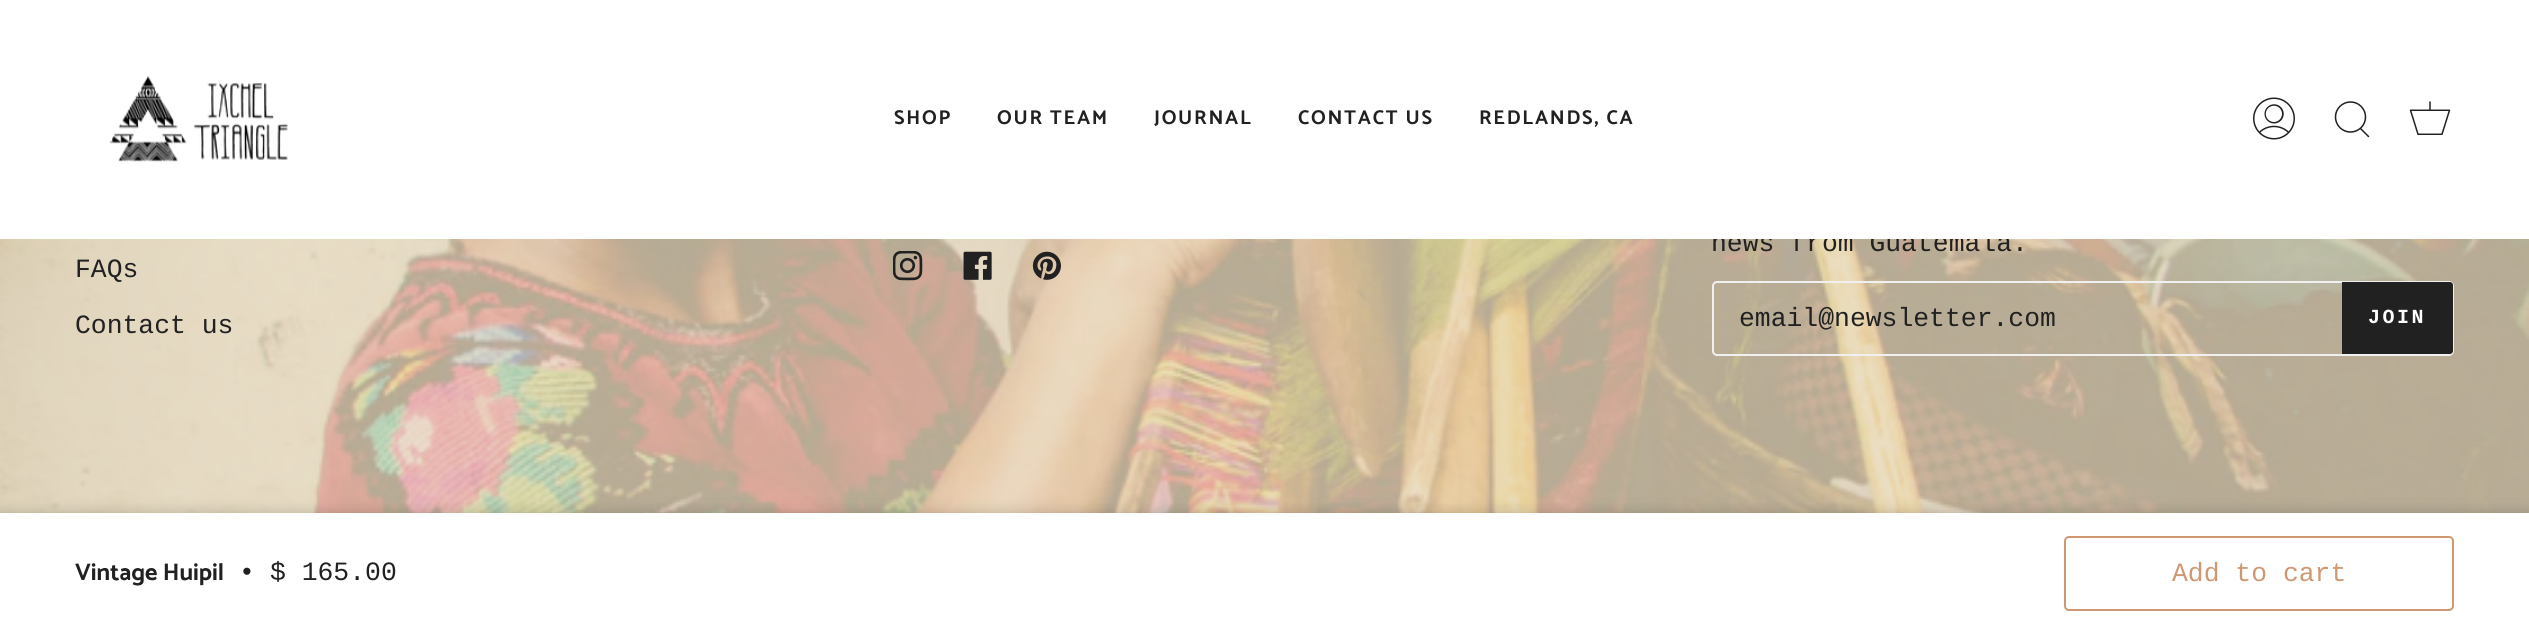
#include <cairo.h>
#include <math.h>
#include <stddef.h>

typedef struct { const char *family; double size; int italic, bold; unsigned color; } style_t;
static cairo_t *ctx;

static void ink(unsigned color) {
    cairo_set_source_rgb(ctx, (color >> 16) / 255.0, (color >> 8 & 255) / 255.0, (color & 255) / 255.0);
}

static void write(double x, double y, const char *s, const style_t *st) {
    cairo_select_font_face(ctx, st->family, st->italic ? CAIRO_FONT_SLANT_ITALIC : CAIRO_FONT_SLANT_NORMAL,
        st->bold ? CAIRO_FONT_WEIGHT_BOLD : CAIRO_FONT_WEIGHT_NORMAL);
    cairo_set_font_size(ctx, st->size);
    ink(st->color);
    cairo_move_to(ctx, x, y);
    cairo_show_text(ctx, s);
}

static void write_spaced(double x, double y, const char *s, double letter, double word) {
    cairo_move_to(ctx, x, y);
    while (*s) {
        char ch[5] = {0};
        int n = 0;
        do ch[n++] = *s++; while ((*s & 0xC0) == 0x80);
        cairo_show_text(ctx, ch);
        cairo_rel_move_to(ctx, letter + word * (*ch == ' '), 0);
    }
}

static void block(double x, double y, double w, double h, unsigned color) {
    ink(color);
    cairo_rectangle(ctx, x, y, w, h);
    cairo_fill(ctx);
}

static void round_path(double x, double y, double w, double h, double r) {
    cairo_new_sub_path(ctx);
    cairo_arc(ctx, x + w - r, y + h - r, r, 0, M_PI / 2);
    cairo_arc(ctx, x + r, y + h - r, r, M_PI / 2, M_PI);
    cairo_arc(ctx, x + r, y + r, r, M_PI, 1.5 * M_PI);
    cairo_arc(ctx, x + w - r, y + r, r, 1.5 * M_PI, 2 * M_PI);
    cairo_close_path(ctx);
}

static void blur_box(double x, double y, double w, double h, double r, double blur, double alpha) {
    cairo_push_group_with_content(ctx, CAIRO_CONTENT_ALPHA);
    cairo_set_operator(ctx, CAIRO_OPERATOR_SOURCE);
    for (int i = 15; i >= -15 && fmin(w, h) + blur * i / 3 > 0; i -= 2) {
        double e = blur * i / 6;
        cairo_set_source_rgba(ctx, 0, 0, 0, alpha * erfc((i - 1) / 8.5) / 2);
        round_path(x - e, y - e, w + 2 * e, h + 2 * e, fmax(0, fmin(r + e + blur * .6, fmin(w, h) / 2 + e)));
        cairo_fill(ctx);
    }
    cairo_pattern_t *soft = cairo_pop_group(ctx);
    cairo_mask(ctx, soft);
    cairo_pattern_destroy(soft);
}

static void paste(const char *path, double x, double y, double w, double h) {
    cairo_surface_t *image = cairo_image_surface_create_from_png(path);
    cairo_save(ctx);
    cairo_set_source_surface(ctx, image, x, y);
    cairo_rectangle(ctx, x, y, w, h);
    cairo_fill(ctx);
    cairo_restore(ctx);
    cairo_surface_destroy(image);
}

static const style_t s1 = {"Liberation Mono", 26.4, 0, 0, 0x212121};
static const style_t s2 = {"Catamaran", 24, 0, 1, 0x212121};
static const style_t s3 = {"Liberation Mono", 26.4, 0, 0, 0xd09872};

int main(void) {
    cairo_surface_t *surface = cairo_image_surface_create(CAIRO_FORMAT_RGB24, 2529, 632);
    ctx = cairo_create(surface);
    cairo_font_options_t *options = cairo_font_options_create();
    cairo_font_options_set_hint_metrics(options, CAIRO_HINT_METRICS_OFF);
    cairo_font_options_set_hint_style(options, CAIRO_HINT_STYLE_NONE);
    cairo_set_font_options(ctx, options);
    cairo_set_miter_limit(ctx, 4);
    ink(0xffffff);
    cairo_paint(ctx);
    paste("pic8.png", 0, 239, 2529, 274);
    write(1711, 251, "news from Guatemala.", &s1);
    block(1713, 237, 296, 2, 0xffffff);
    paste("pic1.png", 109, 76, 179, 86);
    cairo_select_font_face(ctx, "Catamaran", CAIRO_FONT_SLANT_NORMAL, CAIRO_FONT_WEIGHT_BOLD);
    cairo_set_font_size(ctx, 20);
    ink(0x212121);
    write_spaced(894, 124, "SHOP", 1.75, 0);
    write_spaced(997, 124, "OUR TEAM", 1.75, 0);
    write_spaced(1154, 124, "JOURNAL", 1.75, 0);
    write_spaced(1298, 124, "CONTACT US", 1.75, 0);
    write_spaced(1479, 124, "REDLANDS, CA", 1.75, 0);
    paste("pic2.png", 2253, 97, 42, 43);
    paste("pic3.png", 2334, 101, 36, 37);
    paste("pic4.png", 2409, 101, 42, 34);
    block(1718, 231, 288, 6, 0xffffff);
    ink(0x000000);
    blur_box(0, 513, 2529, 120, 0, 7.5, 0.2);
    block(0, 513, 2529, 119, 0xffffff);
    write(75, 580, "Vintage Huipil", &s2);
    write(239, 580, "•", &s1);
    write(270, 580, "$ 165.00", &s1);
    round_path(2065, 537, 388, 73, 4);
    ink(0xd09872);
    cairo_stroke(ctx);
    write(2172, 581, "Add to cart", &s3);
    write(75, 277, "FAQs", &s1);
    write(75, 333, "Contact us", &s1);
    paste("pic5.png", 893, 251, 30, 30);
    paste("pic6.png", 963, 251, 29, 29);
    paste("pic7.png", 1032, 251, 29, 29);
    round_path(1713, 282, 740, 73, 4);
    ink(0xf0f0f0);
    cairo_stroke(ctx);
    write(1739, 326, "email@newsletter.com", &s1);
    cairo_new_path(ctx);
    cairo_move_to(ctx, 2342, 282);
    cairo_line_to(ctx, 2450, 282);
    cairo_curve_to(ctx, 2451.5, 282, 2453, 283.5, 2453, 285);
    cairo_line_to(ctx, 2453, 351);
    cairo_curve_to(ctx, 2453, 352.5, 2451.5, 354, 2450, 354);
    cairo_line_to(ctx, 2342, 354);
    cairo_close_path(ctx);
    cairo_fill(ctx);
    round_path(2342, 282, 111, 72, 5);
    cairo_fill(ctx);
    cairo_select_font_face(ctx, "Liberation Mono", CAIRO_FONT_SLANT_NORMAL, CAIRO_FONT_WEIGHT_BOLD);
    cairo_set_font_size(ctx, 20);
    ink(0xffffff);
    write_spaced(2368, 323, "JOIN", 2.5, 0);
    cairo_surface_write_to_png(surface, "screenshot.png");
    cairo_font_options_destroy(options);
    cairo_destroy(ctx);
    cairo_surface_destroy(surface);
    return 0;
}
